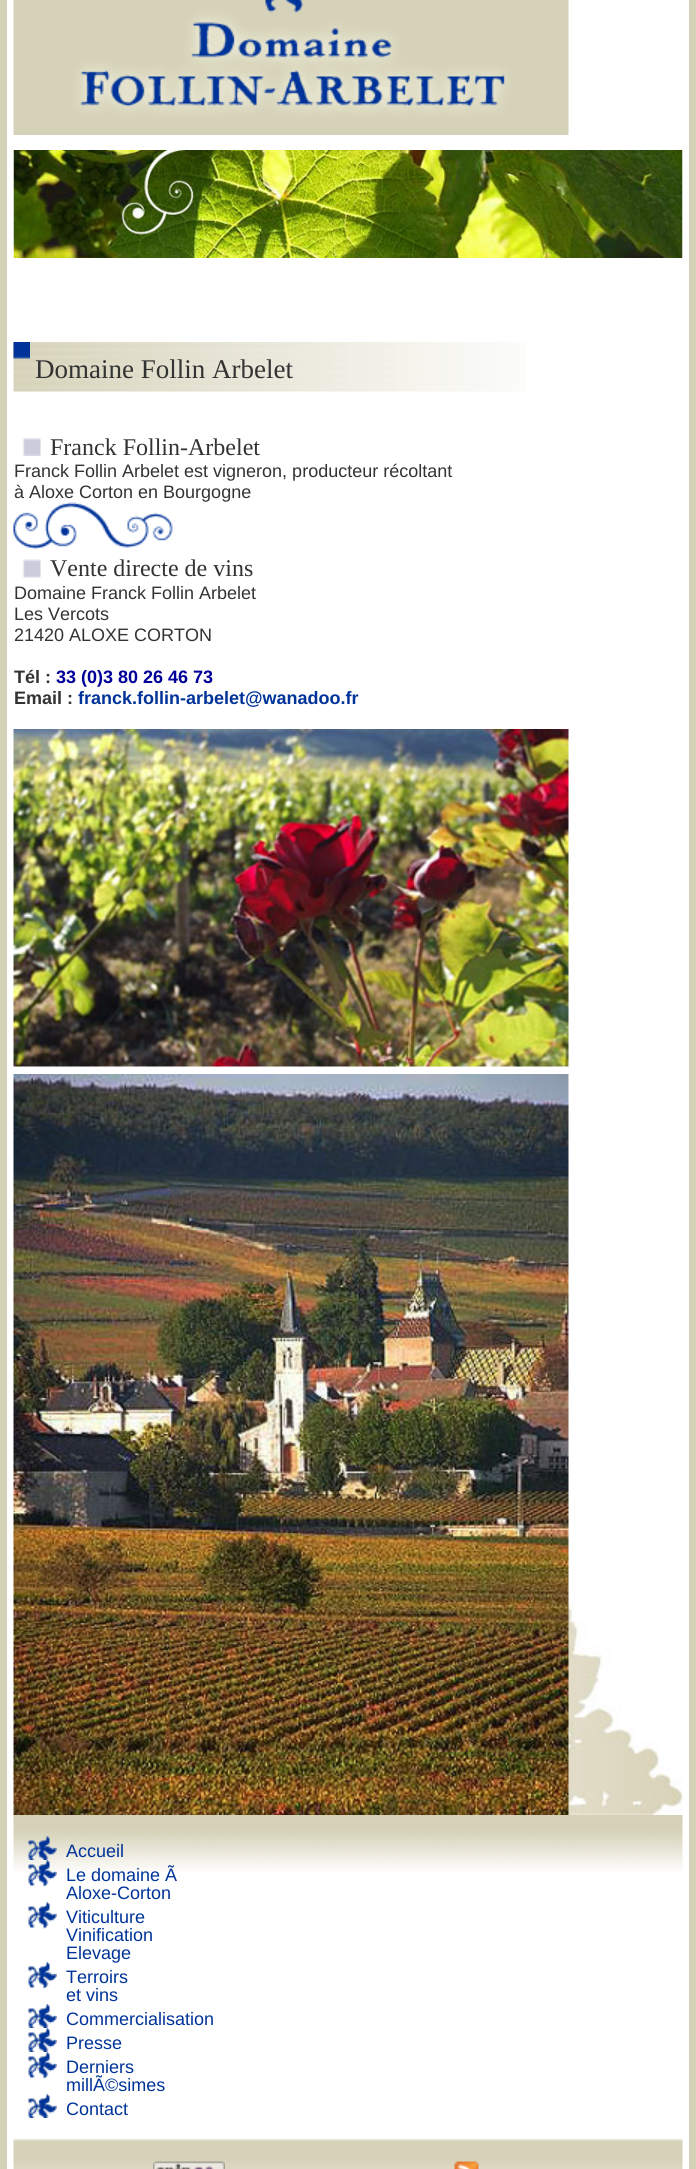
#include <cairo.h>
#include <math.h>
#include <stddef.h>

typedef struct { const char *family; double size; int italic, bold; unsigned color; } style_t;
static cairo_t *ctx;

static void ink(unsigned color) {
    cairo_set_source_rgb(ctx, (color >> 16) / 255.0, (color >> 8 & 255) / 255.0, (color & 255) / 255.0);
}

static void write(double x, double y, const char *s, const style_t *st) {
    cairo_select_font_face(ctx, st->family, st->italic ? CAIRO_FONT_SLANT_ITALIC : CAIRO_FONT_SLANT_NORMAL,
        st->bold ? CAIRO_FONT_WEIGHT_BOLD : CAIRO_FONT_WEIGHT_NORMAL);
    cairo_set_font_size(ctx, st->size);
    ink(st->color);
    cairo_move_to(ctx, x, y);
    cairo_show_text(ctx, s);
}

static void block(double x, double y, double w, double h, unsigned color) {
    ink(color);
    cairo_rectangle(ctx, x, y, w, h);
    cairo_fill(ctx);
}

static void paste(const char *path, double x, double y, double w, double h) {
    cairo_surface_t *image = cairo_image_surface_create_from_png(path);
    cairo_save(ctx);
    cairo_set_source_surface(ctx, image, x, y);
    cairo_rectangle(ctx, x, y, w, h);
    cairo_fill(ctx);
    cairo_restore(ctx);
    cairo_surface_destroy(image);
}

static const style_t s1 = {"Liberation Serif", 27, 0, 0, 0x333333};
static const style_t s2 = {"Liberation Serif", 24, 0, 0, 0x333333};
static const style_t s3 = {"Liberation Sans", 18, 0, 0, 0x333333};
static const style_t s4 = {"Liberation Sans", 18, 0, 1, 0x333333};
static const style_t s5 = {"Liberation Sans", 18, 0, 1, 0x000099};
static const style_t s6 = {"Liberation Sans", 18, 0, 1, 0x003399};
static const style_t s7 = {"Liberation Sans", 18, 0, 0, 0x003399};

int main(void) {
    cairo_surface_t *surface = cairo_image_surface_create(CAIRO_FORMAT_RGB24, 696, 2169);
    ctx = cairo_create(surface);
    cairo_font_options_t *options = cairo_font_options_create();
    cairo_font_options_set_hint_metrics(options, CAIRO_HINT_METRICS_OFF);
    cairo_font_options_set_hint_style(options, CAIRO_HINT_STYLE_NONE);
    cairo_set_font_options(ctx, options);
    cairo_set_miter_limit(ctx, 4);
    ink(0xd6d2b9);
    cairo_paint(ctx);
    block(7, 0, 682, 2169, 0xffffff);
    paste("pic1.png", 13, 0, 556, 135);
    paste("pic2.png", 568, 1585, 115, 230);
    paste("pic3.png", 13, 150, 670, 108);
    paste("pic4.png", 13, 342, 513, 50);
    paste("pic5.png", 13, 342, 17, 17);
    write(35, 378, "Domaine Follin Arbelet", &s1);
    paste("pic6.png", 22, 438, 19, 18);
    write(50, 455, "Franck Follin-Arbelet", &s2);
    write(14, 477, "Franck Follin Arbelet est vigneron, producteur récoltant", &s3);
    write(14, 498, "à Aloxe Corton en Bourgogne", &s3);
    paste("pic7.png", 13, 502, 160, 47);
    paste("pic8.png", 22, 559, 19, 19);
    write(50, 576, "Vente directe de vins", &s2);
    write(14, 599, "Domaine Franck Follin Arbelet", &s3);
    write(14, 620, "Les Vercots", &s3);
    write(14, 641, "21420 ALOXE CORTON", &s3);
    write(14, 683, "Tél :", &s4);
    write(56, 683, "33 (0)3 80 26 46 73", &s5);
    write(14, 704, "Email :", &s4);
    write(78, 704, "franck.follin-arbelet@wanadoo.fr", &s6);
    paste("pic9.png", 13, 729, 556, 338);
    paste("pic10.png", 13, 1074, 556, 741);
    paste("pic11.png", 13, 1815, 670, 57);
    paste("pic12.png", 28, 1836, 29, 24);
    write(66, 1857, "Accueil", &s7);
    paste("pic13.png", 28, 1860, 29, 27);
    write(66, 1881, "Le domaine Ã", &s7);
    write(66, 1899, "Aloxe-Corton", &s7);
    paste("pic14.png", 28, 1902, 29, 27);
    write(66, 1923, "Viticulture", &s7);
    write(66, 1941, "Vinification", &s7);
    write(66, 1959, "Elevage", &s7);
    paste("pic14.png", 28, 1962, 29, 27);
    write(66, 1983, "Terroirs", &s7);
    write(66, 2001, "et vins", &s7);
    paste("pic15.png", 28, 2004, 29, 24);
    write(66, 2025, "Commercialisation", &s7);
    paste("pic15.png", 28, 2028, 29, 24);
    write(66, 2049, "Presse", &s7);
    paste("pic14.png", 28, 2052, 29, 27);
    write(66, 2073, "Derniers", &s7);
    write(66, 2091, "millÃ©simes", &s7);
    paste("pic15.png", 28, 2094, 29, 24);
    write(66, 2115, "Contact", &s7);
    paste("pic16.png", 13, 2139, 670, 30);
    paste("pic17.png", 153, 2161, 72, 8);
    paste("pic18.png", 454, 2161, 25, 8);
    cairo_surface_write_to_png(surface, "screenshot.png");
    cairo_font_options_destroy(options);
    cairo_destroy(ctx);
    cairo_surface_destroy(surface);
    return 0;
}
